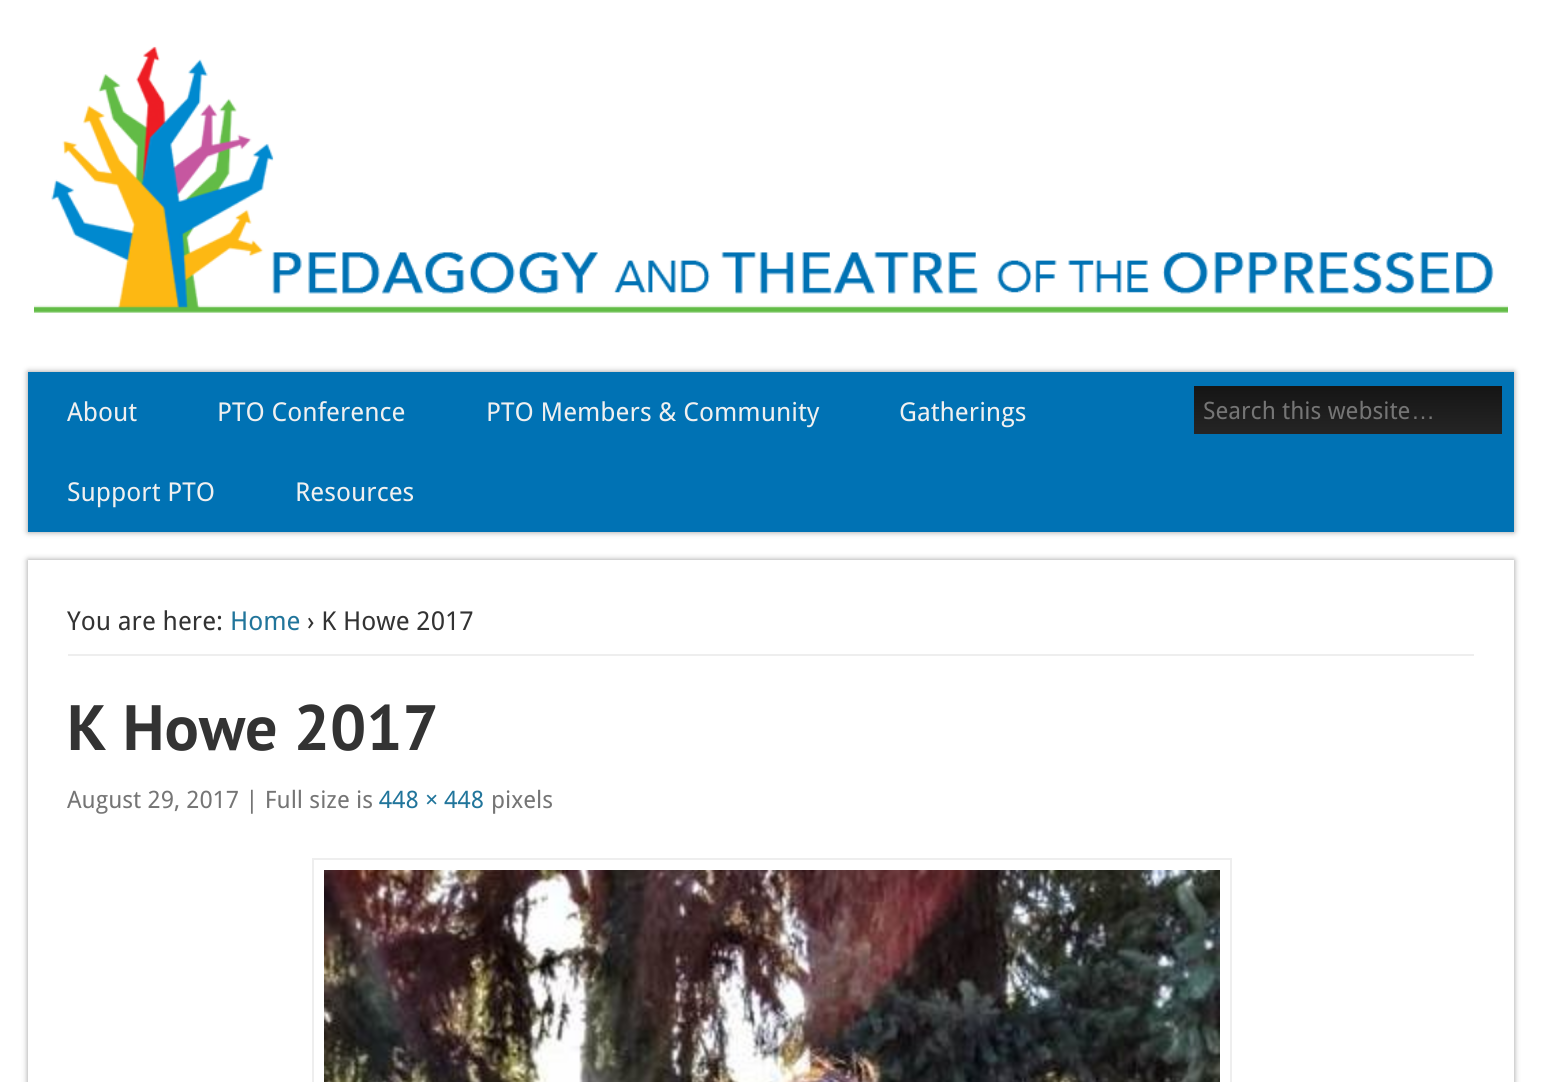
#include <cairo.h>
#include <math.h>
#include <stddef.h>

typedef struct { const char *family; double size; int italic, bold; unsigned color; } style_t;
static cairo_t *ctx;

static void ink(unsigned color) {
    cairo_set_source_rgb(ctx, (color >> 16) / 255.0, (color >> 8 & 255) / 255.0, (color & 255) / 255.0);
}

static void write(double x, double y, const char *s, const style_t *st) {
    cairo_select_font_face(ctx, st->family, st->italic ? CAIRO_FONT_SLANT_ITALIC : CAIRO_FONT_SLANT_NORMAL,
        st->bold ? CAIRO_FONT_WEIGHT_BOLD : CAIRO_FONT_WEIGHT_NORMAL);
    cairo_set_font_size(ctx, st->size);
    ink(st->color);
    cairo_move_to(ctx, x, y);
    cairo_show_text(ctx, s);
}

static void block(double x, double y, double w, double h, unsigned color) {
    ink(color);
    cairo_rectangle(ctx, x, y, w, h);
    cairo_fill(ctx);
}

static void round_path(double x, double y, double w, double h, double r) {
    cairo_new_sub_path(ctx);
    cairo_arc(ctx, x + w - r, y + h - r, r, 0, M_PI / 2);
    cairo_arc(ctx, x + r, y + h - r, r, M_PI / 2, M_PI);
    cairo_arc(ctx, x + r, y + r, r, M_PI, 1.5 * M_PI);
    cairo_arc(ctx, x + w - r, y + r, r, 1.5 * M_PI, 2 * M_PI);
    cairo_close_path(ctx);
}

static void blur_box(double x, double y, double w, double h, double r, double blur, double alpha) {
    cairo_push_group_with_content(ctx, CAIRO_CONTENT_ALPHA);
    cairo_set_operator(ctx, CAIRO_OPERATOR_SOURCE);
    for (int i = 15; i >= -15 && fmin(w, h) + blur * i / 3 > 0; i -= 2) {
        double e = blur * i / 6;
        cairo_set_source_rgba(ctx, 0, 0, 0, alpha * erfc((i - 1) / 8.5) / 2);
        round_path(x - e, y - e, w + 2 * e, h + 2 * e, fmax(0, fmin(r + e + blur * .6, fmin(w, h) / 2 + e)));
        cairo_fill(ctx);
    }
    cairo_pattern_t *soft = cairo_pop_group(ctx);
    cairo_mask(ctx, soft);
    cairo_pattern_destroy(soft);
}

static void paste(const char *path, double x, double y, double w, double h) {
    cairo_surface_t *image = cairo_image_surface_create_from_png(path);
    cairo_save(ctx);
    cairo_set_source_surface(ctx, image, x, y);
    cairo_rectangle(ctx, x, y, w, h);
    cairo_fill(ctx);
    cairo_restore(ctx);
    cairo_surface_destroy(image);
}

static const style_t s1 = {"Droid Sans", 26, 0, 0, 0xf0f0f0};
static const style_t s2 = {"Droid Sans", 24, 0, 0, 0x757575};
static const style_t s3 = {"Liberation Sans", 24, 0, 0, 0x757575};
static const style_t s4 = {"Droid Sans", 26, 0, 0, 0x333333};
static const style_t s5 = {"Droid Sans", 26, 0, 0, 0x21759b};
static const style_t s6 = {"PT Sans", 64, 0, 1, 0x333333};
static const style_t s7 = {"Droid Sans", 24, 0, 0, 0x21759b};

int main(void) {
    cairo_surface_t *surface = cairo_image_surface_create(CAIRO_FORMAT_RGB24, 1542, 1082);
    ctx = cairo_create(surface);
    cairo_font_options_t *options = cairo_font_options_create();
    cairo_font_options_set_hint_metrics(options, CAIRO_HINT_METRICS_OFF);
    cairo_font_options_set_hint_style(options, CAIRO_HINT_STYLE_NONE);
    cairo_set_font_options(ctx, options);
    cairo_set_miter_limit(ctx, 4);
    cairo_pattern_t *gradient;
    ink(0xffffff);
    cairo_paint(ctx);
    paste("pic1.png", 34, 46, 1474, 267);
    ink(0x999999);
    blur_box(28, 372, 1486, 160, 0, 3, 1);
    block(28, 372, 1486, 160, 0x0072b4);
    write(67, 421, "About", &s1);
    write(217, 421, "PTO Conference", &s1);
    write(486, 421, "PTO Members & Community", &s1);
    write(899, 421, "Gatherings", &s1);
    write(67, 501, "Support PTO", &s1);
    write(295, 501, "Resources", &s1);
    gradient = cairo_pattern_create_linear(1348, 386, 1348, 434);
    cairo_pattern_add_color_stop_rgba(gradient, 0, 0.082, 0.082, 0.082, 1);
    cairo_pattern_add_color_stop_rgba(gradient, 1, 0.145, 0.145, 0.145, 1);
    cairo_set_source(ctx, gradient);
    cairo_pattern_destroy(gradient);
    cairo_rectangle(ctx, 1194, 386, 308, 48);
    cairo_fill(ctx);
    write(1203, 419, "Search this website", &s2);
    write(1411, 419, "…", &s3);
    cairo_save(ctx);
    cairo_set_fill_rule(ctx, CAIRO_FILL_RULE_EVEN_ODD);
    cairo_new_path(ctx);
    cairo_move_to(ctx, 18, 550);
    cairo_line_to(ctx, 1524, 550);
    cairo_line_to(ctx, 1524, 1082);
    cairo_line_to(ctx, 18, 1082);
    cairo_close_path(ctx);
    cairo_move_to(ctx, 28, 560);
    cairo_line_to(ctx, 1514, 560);
    cairo_line_to(ctx, 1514, 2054);
    cairo_line_to(ctx, 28, 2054);
    cairo_close_path(ctx);
    cairo_clip(ctx);
    ink(0x999999);
    blur_box(28, 560, 1486, 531, 0, 3, 1);
    cairo_restore(ctx);
    block(68, 654, 1406, 2, 0xeeeeee);
    write(67, 630, "You are here:", &s4);
    write(230, 630, "Home", &s5);
    write(307, 630, "› K Howe 2017", &s4);
    write(67, 750, "K Howe 2017", &s6);
    write(67, 808, "August 29, 2017 | Full size is", &s2);
    write(379, 808, "448 × 448", &s7);
    write(491, 808, "pixels", &s2);
    cairo_rectangle(ctx, 313, 859, 918, 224);
    ink(0xeeeeee);
    cairo_stroke(ctx);
    paste("pic2.png", 324, 870, 896, 212);
    cairo_surface_write_to_png(surface, "screenshot.png");
    cairo_font_options_destroy(options);
    cairo_destroy(ctx);
    cairo_surface_destroy(surface);
    return 0;
}
